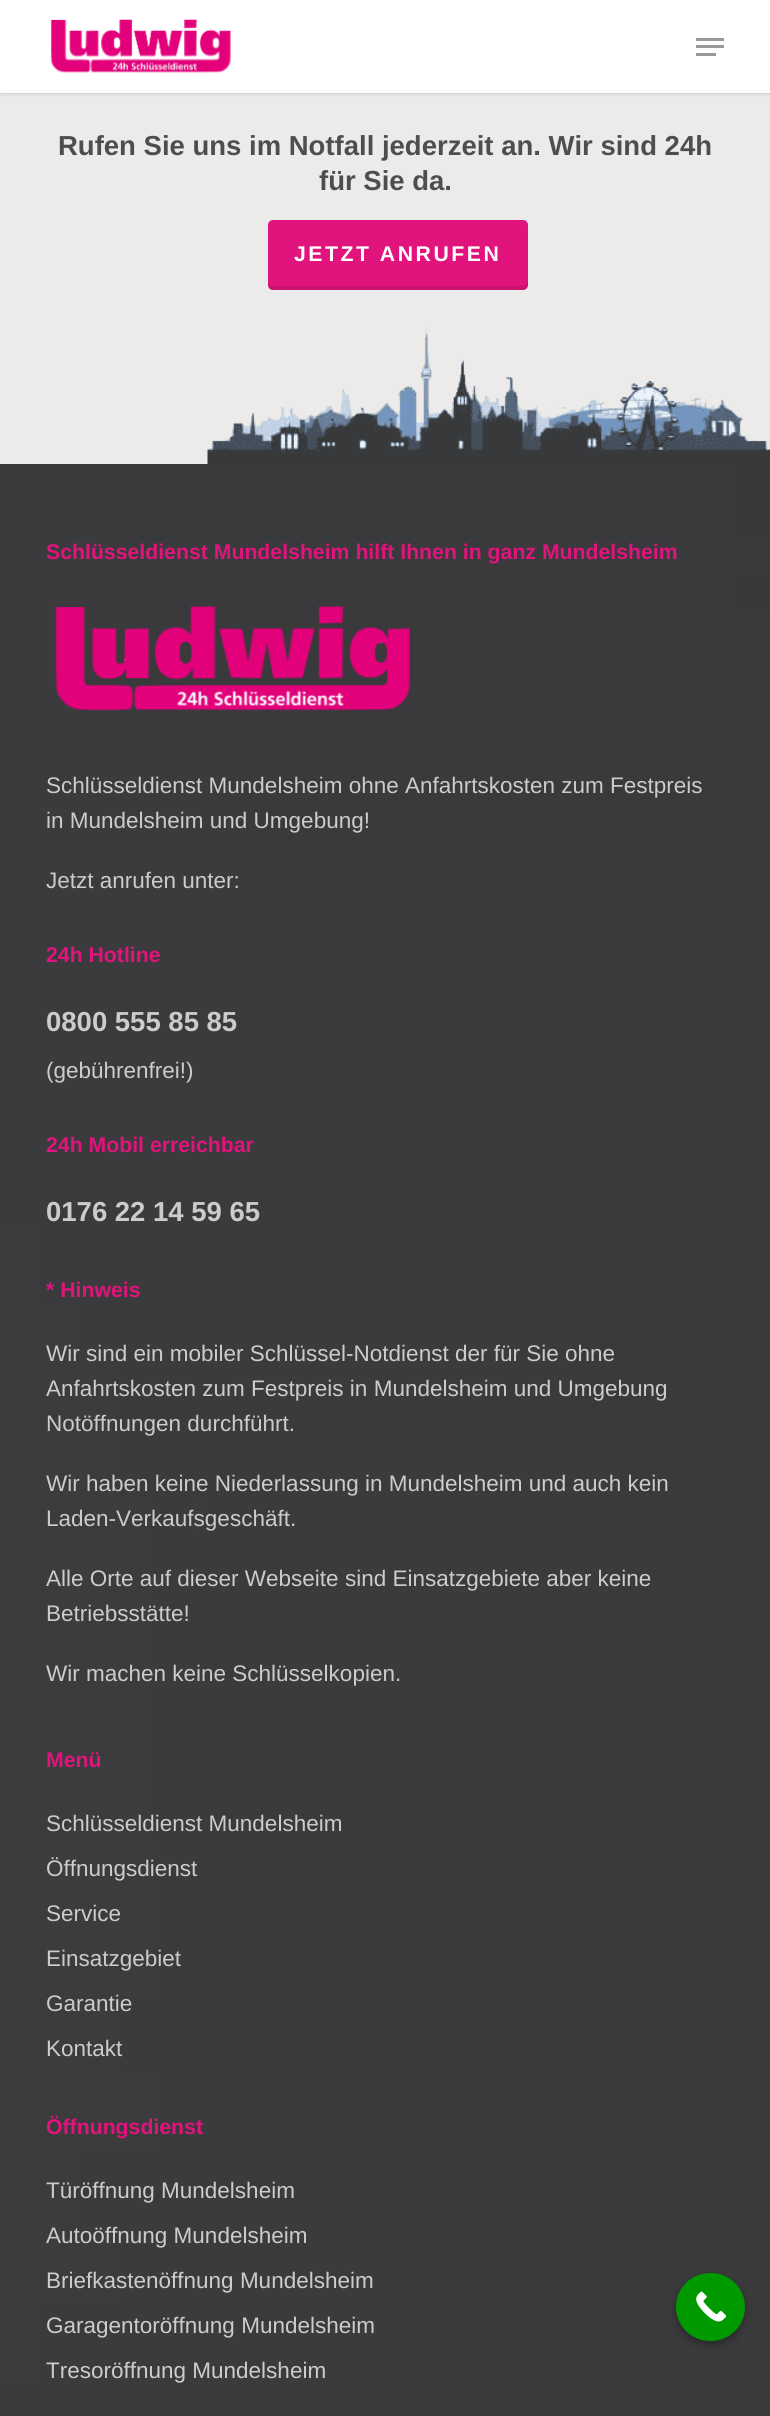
#include <cairo.h>
#include <math.h>
#include <stddef.h>

typedef struct { const char *family; double size; int italic, bold; unsigned color; } style_t;
static cairo_t *ctx;

static void ink(unsigned color) {
    cairo_set_source_rgb(ctx, (color >> 16) / 255.0, (color >> 8 & 255) / 255.0, (color & 255) / 255.0);
}

static void write(double x, double y, const char *s, const style_t *st) {
    cairo_select_font_face(ctx, st->family, st->italic ? CAIRO_FONT_SLANT_ITALIC : CAIRO_FONT_SLANT_NORMAL,
        st->bold ? CAIRO_FONT_WEIGHT_BOLD : CAIRO_FONT_WEIGHT_NORMAL);
    cairo_set_font_size(ctx, st->size);
    ink(st->color);
    cairo_move_to(ctx, x, y);
    cairo_show_text(ctx, s);
}

static void write_spaced(double x, double y, const char *s, double letter, double word) {
    cairo_move_to(ctx, x, y);
    while (*s) {
        char ch[5] = {0};
        int n = 0;
        do ch[n++] = *s++; while ((*s & 0xC0) == 0x80);
        cairo_show_text(ctx, ch);
        cairo_rel_move_to(ctx, letter + word * (*ch == ' '), 0);
    }
}

static void block(double x, double y, double w, double h, unsigned color) {
    ink(color);
    cairo_rectangle(ctx, x, y, w, h);
    cairo_fill(ctx);
}

static void round_path(double x, double y, double w, double h, double r) {
    cairo_new_sub_path(ctx);
    cairo_arc(ctx, x + w - r, y + h - r, r, 0, M_PI / 2);
    cairo_arc(ctx, x + r, y + h - r, r, M_PI / 2, M_PI);
    cairo_arc(ctx, x + r, y + r, r, M_PI, 1.5 * M_PI);
    cairo_arc(ctx, x + w - r, y + r, r, 1.5 * M_PI, 2 * M_PI);
    cairo_close_path(ctx);
}

static void blur_box(double x, double y, double w, double h, double r, double blur, double alpha) {
    cairo_push_group_with_content(ctx, CAIRO_CONTENT_ALPHA);
    cairo_set_operator(ctx, CAIRO_OPERATOR_SOURCE);
    for (int i = 15; i >= -15 && fmin(w, h) + blur * i / 3 > 0; i -= 2) {
        double e = blur * i / 6;
        cairo_set_source_rgba(ctx, 0, 0, 0, alpha * erfc((i - 1) / 8.5) / 2);
        round_path(x - e, y - e, w + 2 * e, h + 2 * e, fmax(0, fmin(r + e + blur * .6, fmin(w, h) / 2 + e)));
        cairo_fill(ctx);
    }
    cairo_pattern_t *soft = cairo_pop_group(ctx);
    cairo_mask(ctx, soft);
    cairo_pattern_destroy(soft);
}

static void paste(const char *path, double x, double y, double w, double h) {
    cairo_surface_t *image = cairo_image_surface_create_from_png(path);
    cairo_save(ctx);
    cairo_set_source_surface(ctx, image, x, y);
    cairo_rectangle(ctx, x, y, w, h);
    cairo_fill(ctx);
    cairo_restore(ctx);
    cairo_surface_destroy(image);
}

static const style_t s1 = {"Liberation Sans", 27.5, 0, 1, 0x4b4f52};
static const style_t s2 = {"Liberation Sans", 21.25, 0, 1, 0xe1137c};
static const style_t s3 = {"Liberation Sans", 22.5, 0, 0, 0xcccccc};
static const style_t s4 = {"Liberation Sans", 27.5, 0, 1, 0xcccccc};

int main(void) {
    cairo_surface_t *surface = cairo_image_surface_create(CAIRO_FORMAT_RGB24, 770, 2416);
    ctx = cairo_create(surface);
    cairo_font_options_t *options = cairo_font_options_create();
    cairo_font_options_set_hint_metrics(options, CAIRO_HINT_METRICS_OFF);
    cairo_font_options_set_hint_style(options, CAIRO_HINT_STYLE_NONE);
    cairo_set_font_options(ctx, options);
    cairo_set_miter_limit(ctx, 4);
    ink(0xffffff);
    cairo_paint(ctx);
    block(0, 93, 770, 371, 0xecebe9);
    ink(0x000000);
    blur_box(0, 0, 770, 93, 0, 2, 0.22);
    block(0, 0, 770, 93, 0xffffff);
    paste("pic1.png", 50, 19, 181, 54);
    block(696, 38, 28, 3, 0x999999);
    block(696, 53, 20, 3, 0x999999);
    block(696, 45, 28, 3, 0x999999);
    paste("pic2.png", 0, 464, 770, 1952);
    paste("pic3.png", 207, 327, 563, 137);
    write(58, 155, "Rufen Sie uns im Notfall jederzeit an. Wir sind 24h", &s1);
    write(319, 190, "für Sie da.", &s1);
    ink(0xe1137c);
    round_path(268, 220, 260, 70, 5);
    cairo_fill(ctx);
    cairo_set_source_rgba(ctx, 0, 0, 0, 0.1);
    cairo_new_path(ctx);
    cairo_move_to(ctx, 268, 281);
    cairo_line_to(ctx, 268, 285);
    cairo_curve_to(ctx, 268, 288, 270, 290, 273, 290);
    cairo_line_to(ctx, 523, 290);
    cairo_curve_to(ctx, 526, 290, 528, 288, 528, 285);
    cairo_line_to(ctx, 528, 281);
    cairo_curve_to(ctx, 528, 284, 525, 286, 522, 286);
    cairo_line_to(ctx, 272, 286);
    cairo_curve_to(ctx, 270, 286, 268, 284, 268, 281);
    cairo_close_path(ctx);
    cairo_fill(ctx);
    cairo_set_font_size(ctx, 21.25);
    ink(0xffffff);
    write_spaced(294, 261, "JETZT ANRUFEN", 2.5, 0);
    write(46, 559, "Schlüsseldienst Mundelsheim hilft Ihnen in ganz Mundelsheim", &s2);
    paste("pic4.png", 55, 606, 356, 105);
    write(46, 793, "Schlüsseldienst Mundelsheim ohne Anfahrtskosten zum Festpreis", &s3);
    write(46, 828, "in Mundelsheim und Umgebung!", &s3);
    write(46, 888, "Jetzt anrufen unter:", &s3);
    write(46, 962, "24h Hotline", &s2);
    write(46, 1031, "0800 555 85 85", &s4);
    write(46, 1078, "(gebührenfrei!)", &s3);
    write(46, 1152, "24h Mobil erreichbar", &s2);
    write(46, 1221, "0176 22 14 59 65", &s4);
    write(46, 1297, "* Hinweis", &s2);
    write(46, 1361, "Wir sind ein mobiler Schlüssel-Notdienst der für Sie ohne", &s3);
    write(46, 1396, "Anfahrtskosten zum Festpreis in Mundelsheim und Umgebung", &s3);
    write(46, 1431, "Notöffnungen durchführt.", &s3);
    write(46, 1491, "Wir haben keine Niederlassung in Mundelsheim und auch kein", &s3);
    write(46, 1526, "Laden-Verkaufsgeschäft.", &s3);
    write(46, 1586, "Alle Orte auf dieser Webseite sind Einsatzgebiete aber keine", &s3);
    write(46, 1621, "Betriebsstätte!", &s3);
    write(46, 1681, "Wir machen keine Schlüsselkopien.", &s3);
    write(46, 1767, "Menü", &s2);
    write(46, 1831, "Schlüsseldienst Mundelsheim", &s3);
    write(46, 1876, "Öffnungsdienst", &s3);
    write(46, 1921, "Service", &s3);
    write(46, 1966, "Einsatzgebiet", &s3);
    write(46, 2011, "Garantie", &s3);
    write(46, 2056, "Kontakt", &s3);
    write(46, 2134, "Öffnungsdienst", &s2);
    write(46, 2198, "Türöffnung Mundelsheim", &s3);
    write(46, 2243, "Autoöffnung Mundelsheim", &s3);
    write(46, 2288, "Briefkastenöffnung Mundelsheim", &s3);
    write(46, 2333, "Garagentoröffnung Mundelsheim", &s3);
    write(46, 2378, "Tresoröffnung Mundelsheim", &s3);
    ink(0x000000);
    blur_box(676, 2276, 69, 69, 34.5, 4, 0.3);
    ink(0x009900);
    round_path(676, 2273, 69, 68, 34);
    cairo_fill(ctx);
    paste("pic5.png", 696, 2291, 31, 31);
    cairo_surface_write_to_png(surface, "screenshot.png");
    cairo_font_options_destroy(options);
    cairo_destroy(ctx);
    cairo_surface_destroy(surface);
    return 0;
}
